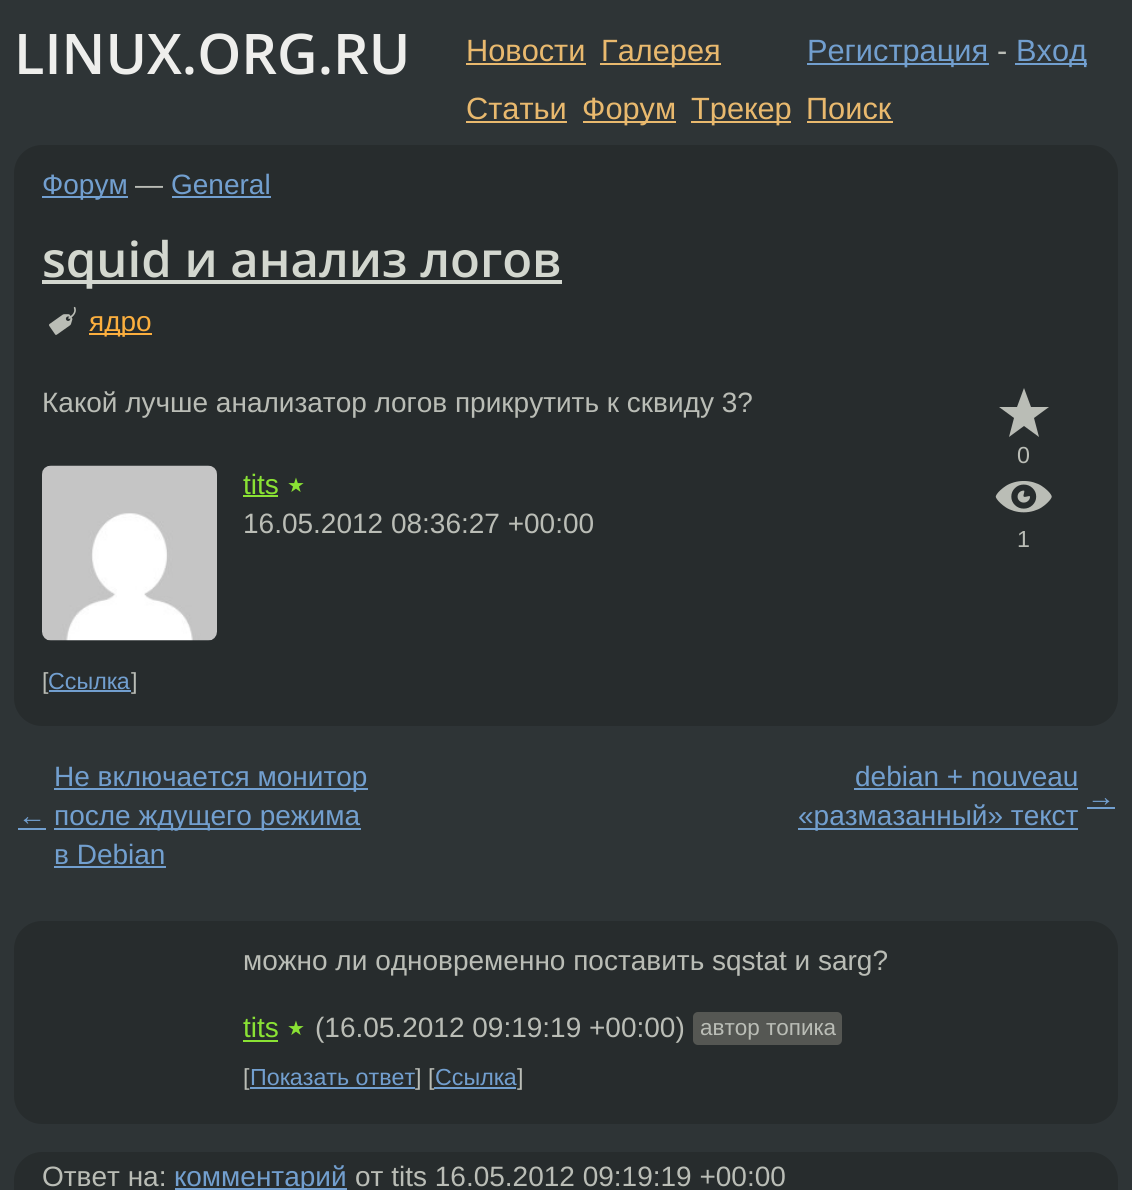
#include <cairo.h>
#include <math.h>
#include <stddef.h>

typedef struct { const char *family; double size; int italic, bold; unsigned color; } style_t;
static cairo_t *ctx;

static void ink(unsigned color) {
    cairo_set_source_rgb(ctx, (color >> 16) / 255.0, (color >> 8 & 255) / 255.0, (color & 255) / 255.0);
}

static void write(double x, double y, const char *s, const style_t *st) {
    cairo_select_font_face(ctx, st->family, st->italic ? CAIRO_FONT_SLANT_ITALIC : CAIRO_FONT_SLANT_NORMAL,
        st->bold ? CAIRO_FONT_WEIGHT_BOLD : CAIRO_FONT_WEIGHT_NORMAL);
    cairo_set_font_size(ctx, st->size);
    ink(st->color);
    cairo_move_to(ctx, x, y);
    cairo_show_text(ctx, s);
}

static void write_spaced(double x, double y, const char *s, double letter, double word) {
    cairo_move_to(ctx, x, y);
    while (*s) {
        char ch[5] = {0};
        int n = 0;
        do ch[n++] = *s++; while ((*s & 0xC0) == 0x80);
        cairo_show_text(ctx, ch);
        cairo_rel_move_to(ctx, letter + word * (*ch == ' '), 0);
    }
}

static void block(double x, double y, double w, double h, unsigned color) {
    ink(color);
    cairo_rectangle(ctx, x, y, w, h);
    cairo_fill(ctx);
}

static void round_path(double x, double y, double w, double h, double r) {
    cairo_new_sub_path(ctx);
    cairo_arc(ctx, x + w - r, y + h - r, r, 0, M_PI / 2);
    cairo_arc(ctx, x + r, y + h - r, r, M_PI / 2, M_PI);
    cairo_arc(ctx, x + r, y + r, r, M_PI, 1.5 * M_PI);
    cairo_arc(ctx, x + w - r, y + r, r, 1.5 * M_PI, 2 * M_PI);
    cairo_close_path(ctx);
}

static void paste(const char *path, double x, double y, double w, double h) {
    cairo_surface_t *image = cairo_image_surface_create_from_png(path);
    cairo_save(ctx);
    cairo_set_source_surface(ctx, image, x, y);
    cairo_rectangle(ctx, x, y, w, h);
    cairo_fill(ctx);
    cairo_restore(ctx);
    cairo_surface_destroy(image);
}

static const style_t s1 = {"Open Sans SemiBold", 56, 0, 0, 0xeeeeec};
static const style_t s2 = {"Liberation Sans", 30.75, 0, 0, 0xe9b96e};
static const style_t s3 = {"Liberation Sans", 30.75, 0, 0, 0x729fcf};
static const style_t s4 = {"Liberation Sans", 30.75, 0, 0, 0xbabdb6};
static const style_t s5 = {"Liberation Sans", 28, 0, 0, 0x729fcf};
static const style_t s6 = {"Liberation Sans", 28, 0, 0, 0xbabdb6};
static const style_t s7 = {"Open Sans SemiBold", 49, 0, 0, 0xd3d7cf};
static const style_t s8 = {"Liberation Sans", 28, 0, 0, 0xfcaf3e};
static const style_t s9 = {"Liberation Sans", 28, 0, 0, 0x8ae234};
static const style_t s10 = {"Liberation Sans", 23.25, 0, 0, 0xbabdb6};
static const style_t s11 = {"Liberation Sans", 23.25, 0, 0, 0x729fcf};
static const style_t s12 = {"Liberation Sans", 22.5, 0, 0, 0xbabdb6};

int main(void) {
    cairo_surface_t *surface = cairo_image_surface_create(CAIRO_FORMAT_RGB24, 1132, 1190);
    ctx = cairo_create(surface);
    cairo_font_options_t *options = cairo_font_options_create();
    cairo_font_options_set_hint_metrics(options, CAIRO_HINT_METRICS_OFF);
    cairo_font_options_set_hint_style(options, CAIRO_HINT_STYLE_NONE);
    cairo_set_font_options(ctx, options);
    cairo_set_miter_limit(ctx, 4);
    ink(0x2e3436);
    cairo_paint(ctx);
    write(14, 74, "LINUX.ORG.RU", &s1);
    write(466, 61, "Новости", &s2);
    block(466, 63, 120, 2, 0xe9b96e);
    block(600, 63, 121, 2, 0xe9b96e);
    write(601, 61, "Галерея", &s2);
    write(466, 119, "Статьи", &s2);
    block(466, 121, 101, 2, 0xe9b96e);
    block(583, 121, 93, 2, 0xe9b96e);
    write(582, 119, "Форум", &s2);
    block(691, 121, 100, 2, 0xe9b96e);
    write(691, 119, "Трекер", &s2);
    write(806, 119, "Поиск", &s2);
    block(807, 121, 86, 2, 0xe9b96e);
    block(807, 63, 182, 2, 0x729fcf);
    write(807, 61, "Регистрация", &s3);
    write(997, 61, "-", &s4);
    block(1015, 63, 72, 2, 0x729fcf);
    write(1016, 61, "Вход", &s3);
    ink(0x272c2d);
    round_path(14, 145, 1104, 581, 28);
    cairo_fill(ctx);
    block(42, 196, 86, 2, 0x729fcf);
    write(42, 194, "Форум", &s5);
    write(135, 194, "—", &s6);
    write(171, 194, "General", &s5);
    block(172, 196, 99, 2, 0x729fcf);
    block(42, 280, 520, 4, 0xd3d7cf);
    write(42, 277, "squid и анализ логов", &s7);
    paste("pic1.png", 49, 306, 27, 29);
    block(89, 333, 63, 2, 0xfcaf3e);
    write(89, 331, "ядро", &s8);
    write(42, 412, "Какой лучше анализатор логов прикрутить к сквиду 3?", &s6);
    paste("pic2.png", 42, 465, 175, 176);
    write(243, 494, "tits", &s9);
    block(243, 495, 35, 2, 0x8ae234);
    cairo_select_font_face(ctx, "DejaVu Sans", CAIRO_FONT_SLANT_NORMAL, CAIRO_FONT_WEIGHT_NORMAL);
    cairo_set_font_size(ctx, 20);
    write_spaced(287, 492, "★", 3, 0);
    write(243, 533, "16.05.2012 08:36:27 +00:00", &s6);
    cairo_new_path(ctx);
    cairo_move_to(ctx, 1024, 388);
    cairo_line_to(ctx, 1031, 407);
    cairo_line_to(ctx, 1049, 407);
    cairo_line_to(ctx, 1034, 418);
    cairo_line_to(ctx, 1039, 437);
    cairo_line_to(ctx, 1024, 426);
    cairo_line_to(ctx, 1009, 437);
    cairo_line_to(ctx, 1014, 418);
    cairo_line_to(ctx, 999, 407);
    cairo_line_to(ctx, 1017, 407);
    cairo_close_path(ctx);
    cairo_fill(ctx);
    write(1017, 463, "0", &s10);
    paste("pic3.png", 995, 481, 57, 32);
    write(1017, 547, "1", &s10);
    write(42, 689, "[", &s10);
    block(49, 690, 82, 2, 0x729fcf);
    write(48, 689, "Ссылка", &s11);
    write(131, 689, "]", &s10);
    write(18, 825, "←", &s5);
    block(18, 828, 28, 2, 0x729fcf);
    block(54, 788, 314, 2, 0x729fcf);
    write(54, 786, "Не включается монитор", &s5);
    block(54, 828, 307, 2, 0x729fcf);
    write(54, 825, "после ждущего режима", &s5);
    write(54, 864, "в Debian", &s5);
    block(54, 866, 112, 2, 0x729fcf);
    write(855, 786, "debian + nouveau", &s5);
    block(854, 788, 224, 2, 0x729fcf);
    block(798, 828, 280, 2, 0x729fcf);
    write(798, 825, "«размазанный» текст", &s5);
    write(1087, 806, "→", &s5);
    block(1087, 807, 28, 2, 0x729fcf);
    ink(0x272c2d);
    round_path(14, 921, 1104, 203, 28);
    cairo_fill(ctx);
    write(243, 970, "можно ли одновременно поставить sqstat и sarg?", &s6);
    write(243, 1037, "tits", &s9);
    block(243, 1040, 35, 2, 0x8ae234);
    cairo_select_font_face(ctx, "DejaVu Sans", CAIRO_FONT_SLANT_NORMAL, CAIRO_FONT_WEIGHT_NORMAL);
    cairo_set_font_size(ctx, 20);
    write_spaced(287, 1035, "★", 3, 0);
    write(315, 1037, "(16.05.2012 09:19:19 +00:00)", &s6);
    ink(0x555753);
    round_path(693, 1012, 149, 33, 5);
    cairo_fill(ctx);
    write(700, 1035, "автор топика", &s12);
    write(243, 1085, "[", &s10);
    block(250, 1087, 165, 2, 0x729fcf);
    write(250, 1085, "Показать ответ", &s11);
    write(415, 1085, "] [", &s10);
    block(434, 1087, 82, 2, 0x729fcf);
    write(435, 1085, "Ссылка", &s11);
    write(517, 1085, "]", &s10);
    ink(0x272c2d);
    round_path(14, 1152, 1104, 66, 28);
    cairo_fill(ctx);
    write(42, 1186, "Ответ на:", &s6);
    block(175, 1188, 172, 2, 0x729fcf);
    write(174, 1186, "комментарий", &s5);
    write(355, 1186, "от tits 16.05.2012 09:19:19 +00:00", &s6);
    cairo_surface_write_to_png(surface, "screenshot.png");
    cairo_font_options_destroy(options);
    cairo_destroy(ctx);
    cairo_surface_destroy(surface);
    return 0;
}
